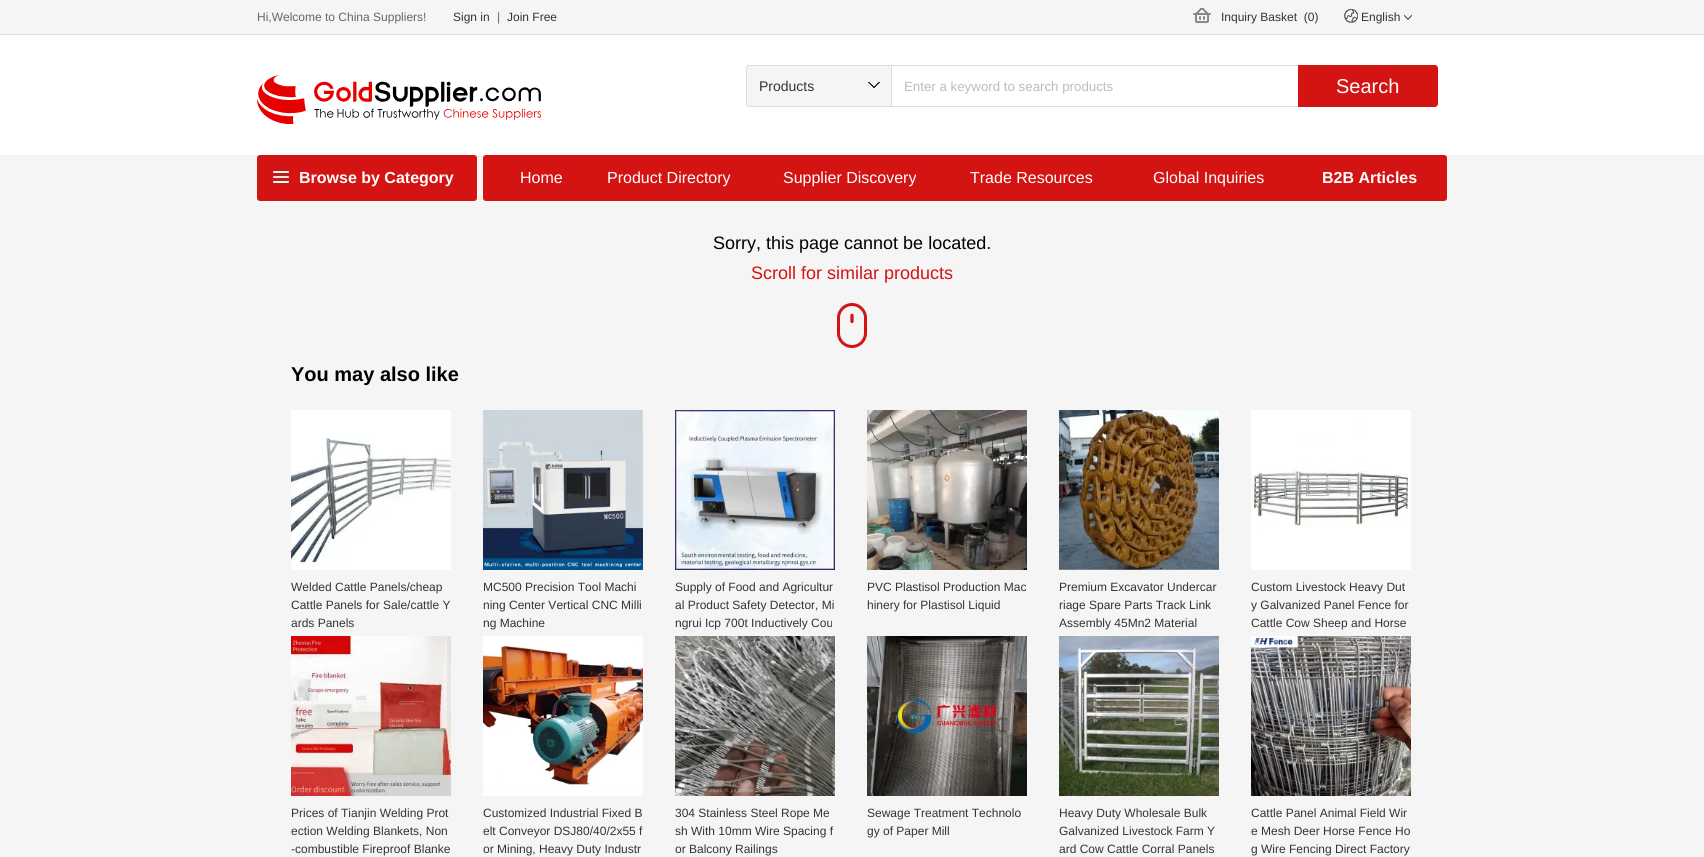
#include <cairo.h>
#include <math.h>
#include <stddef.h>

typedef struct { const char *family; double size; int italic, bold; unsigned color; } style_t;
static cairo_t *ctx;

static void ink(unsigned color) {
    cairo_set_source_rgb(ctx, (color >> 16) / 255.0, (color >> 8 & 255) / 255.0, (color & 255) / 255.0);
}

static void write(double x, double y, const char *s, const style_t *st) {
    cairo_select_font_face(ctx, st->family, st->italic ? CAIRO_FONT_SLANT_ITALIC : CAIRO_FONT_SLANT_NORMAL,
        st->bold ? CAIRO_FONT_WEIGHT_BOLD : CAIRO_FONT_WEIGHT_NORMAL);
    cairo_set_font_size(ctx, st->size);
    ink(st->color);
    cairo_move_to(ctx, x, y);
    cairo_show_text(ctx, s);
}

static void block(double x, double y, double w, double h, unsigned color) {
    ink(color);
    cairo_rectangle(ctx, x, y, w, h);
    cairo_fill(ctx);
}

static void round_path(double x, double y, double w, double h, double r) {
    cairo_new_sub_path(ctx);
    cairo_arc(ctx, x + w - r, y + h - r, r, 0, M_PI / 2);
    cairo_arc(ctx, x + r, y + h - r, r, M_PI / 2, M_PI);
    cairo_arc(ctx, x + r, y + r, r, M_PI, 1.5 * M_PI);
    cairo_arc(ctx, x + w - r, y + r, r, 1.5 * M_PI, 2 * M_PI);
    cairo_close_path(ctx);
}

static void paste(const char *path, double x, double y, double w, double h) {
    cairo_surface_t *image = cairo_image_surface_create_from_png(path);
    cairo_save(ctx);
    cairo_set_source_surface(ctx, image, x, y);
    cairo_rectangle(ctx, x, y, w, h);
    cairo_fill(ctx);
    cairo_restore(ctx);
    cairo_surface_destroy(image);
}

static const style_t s1 = {"Liberation Sans", 12, 0, 0, 0x666666};
static const style_t s2 = {"Liberation Sans", 12, 0, 0, 0x333333};
static const style_t s3 = {"Liberation Sans", 14, 0, 0, 0x333333};
static const style_t s4 = {"Liberation Sans", 13.3, 0, 0, 0xbcbcbc};
static const style_t s5 = {"Liberation Sans", 20, 0, 0, 0xffffff};
static const style_t s6 = {"Liberation Sans", 16, 0, 1, 0xffffff};
static const style_t s7 = {"Liberation Sans", 16, 0, 0, 0xffffff};
static const style_t s8 = {"Liberation Sans", 18, 0, 0, 0x000000};
static const style_t s9 = {"Liberation Sans", 18, 0, 0, 0xd41313};
static const style_t s10 = {"Liberation Sans", 20, 0, 1, 0x000000};

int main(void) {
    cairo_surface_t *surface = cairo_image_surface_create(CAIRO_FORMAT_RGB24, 1704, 857);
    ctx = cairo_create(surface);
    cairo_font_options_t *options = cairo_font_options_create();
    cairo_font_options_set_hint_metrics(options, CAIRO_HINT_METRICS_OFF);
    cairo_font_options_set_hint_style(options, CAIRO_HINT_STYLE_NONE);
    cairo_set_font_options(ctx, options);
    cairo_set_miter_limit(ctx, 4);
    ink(0xf5f5f5);
    cairo_paint(ctx);
    block(0, 34, 1704, 1, 0xdddddd);
    write(257, 21, "Hi,Welcome to China Suppliers!", &s1);
    write(453, 21, "Sign in", &s2);
    write(497, 21, "|", &s1);
    write(507, 21, "Join Free", &s2);
    paste("pic1.png", 1193, 8, 18, 15);
    write(1221, 21, "Inquiry Basket  (0)", &s2);
    paste("pic2.png", 1344, 9, 14, 14);
    write(1361, 21, "English", &s2);
    paste("pic3.png", 1404, 15, 8, 5);
    block(0, 35, 1704, 120, 0xffffff);
    paste("pic4.png", 257, 75, 284, 49);
    cairo_rectangle(ctx, 891.5, 65.5, 407, 41);
    ink(0xdddddd);
    cairo_set_line_width(ctx, 1);
    cairo_stroke(ctx);
    ink(0xf5f5f5);
    cairo_new_path(ctx);
    cairo_move_to(ctx, 749, 65.5);
    cairo_line_to(ctx, 891.5, 65.5);
    cairo_line_to(ctx, 891.5, 106.5);
    cairo_line_to(ctx, 749, 106.5);
    cairo_curve_to(ctx, 747.5, 106.5, 746.5, 105.5, 746.5, 104);
    cairo_line_to(ctx, 746.5, 68);
    cairo_curve_to(ctx, 746.5, 66.5, 747.5, 65.5, 749, 65.5);
    cairo_close_path(ctx);
    cairo_fill_preserve(ctx);
    ink(0xdddddd);
    cairo_stroke(ctx);
    write(759, 91, "Products", &s3);
    paste("pic5.png", 868, 82, 13, 6);
    write(904, 91, "Enter a keyword to search products", &s4);
    ink(0xd41313);
    cairo_new_path(ctx);
    cairo_move_to(ctx, 1298, 65);
    cairo_line_to(ctx, 1435, 65);
    cairo_curve_to(ctx, 1436.5, 65, 1438, 66.5, 1438, 68);
    cairo_line_to(ctx, 1438, 104);
    cairo_curve_to(ctx, 1438, 105.5, 1436.5, 107, 1435, 107);
    cairo_line_to(ctx, 1298, 107);
    cairo_close_path(ctx);
    cairo_fill(ctx);
    write(1336, 93, "Search", &s5);
    ink(0xd41313);
    round_path(257, 155, 220, 46, 3);
    cairo_fill(ctx);
    paste("pic6.png", 273, 170, 16, 31);
    write(299, 183, "Browse by Category", &s6);
    ink(0xd41313);
    round_path(483, 155, 964, 46, 3);
    cairo_fill(ctx);
    write(520, 183, "Home", &s7);
    write(607, 183, "Product Directory", &s7);
    write(783, 183, "Supplier Discovery", &s7);
    write(970, 183, "Trade Resources", &s7);
    write(1153, 183, "Global Inquiries", &s7);
    write(1322, 183, "B2B Articles", &s6);
    write(713, 249, "Sorry, this page cannot be located.", &s8);
    write(751, 279, "Scroll for similar products", &s9);
    paste("pic7.png", 837, 303, 30, 45);
    write(291, 381, "You may also like", &s10);
    paste("pic8.png", 291, 410, 160, 160);
    write(291, 591, "Welded Cattle Panels/cheap", &s2);
    write(291, 609, "Cattle Panels for Sale/cattle Y", &s2);
    write(291, 627, "ards Panels", &s2);
    paste("pic9.png", 483, 410, 160, 160);
    write(483, 591, "MC500 Precision Tool Machi", &s2);
    write(483, 609, "ning Center Vertical CNC Milli", &s2);
    write(483, 627, "ng Machine", &s2);
    paste("pic10.png", 675, 410, 160, 160);
    write(675, 591, "Supply of Food and Agricultur", &s2);
    write(675, 609, "al Product Safety Detector, Mi", &s2);
    write(675, 627, "ngrui Icp 700t Inductively Cou", &s2);
    paste("pic11.png", 867, 410, 160, 160);
    write(867, 591, "PVC Plastisol Production Mac", &s2);
    write(867, 609, "hinery for Plastisol Liquid", &s2);
    paste("pic12.png", 1059, 410, 160, 160);
    write(1059, 591, "Premium Excavator Undercar", &s2);
    write(1059, 609, "riage Spare Parts Track Link", &s2);
    write(1059, 627, "Assembly 45Mn2 Material", &s2);
    paste("pic13.png", 1251, 410, 160, 160);
    write(1251, 591, "Custom Livestock Heavy Dut", &s2);
    write(1251, 609, "y Galvanized Panel Fence for", &s2);
    write(1251, 627, "Cattle Cow Sheep and Horse", &s2);
    paste("pic14.png", 291, 636, 160, 160);
    write(291, 817, "Prices of Tianjin Welding Prot", &s2);
    write(291, 835, "ection Welding Blankets, Non", &s2);
    write(291, 853, "-combustible Fireproof Blanke", &s2);
    paste("pic15.png", 483, 636, 160, 160);
    write(483, 817, "Customized Industrial Fixed B", &s2);
    write(483, 835, "elt Conveyor DSJ80/40/2x55 f", &s2);
    write(483, 853, "or Mining, Heavy Duty Industr", &s2);
    paste("pic16.png", 675, 636, 160, 160);
    write(675, 817, "304 Stainless Steel Rope Me", &s2);
    write(675, 835, "sh With 10mm Wire Spacing f", &s2);
    write(675, 853, "or Balcony Railings", &s2);
    paste("pic17.png", 867, 636, 160, 160);
    write(867, 817, "Sewage Treatment Technolo", &s2);
    write(867, 835, "gy of Paper Mill", &s2);
    paste("pic18.png", 1059, 636, 160, 160);
    write(1059, 817, "Heavy Duty Wholesale Bulk", &s2);
    write(1059, 835, "Galvanized Livestock Farm Y", &s2);
    write(1059, 853, "ard Cow Cattle Corral Panels", &s2);
    paste("pic19.png", 1251, 636, 160, 160);
    write(1251, 817, "Cattle Panel Animal Field Wir", &s2);
    write(1251, 835, "e Mesh Deer Horse Fence Ho", &s2);
    write(1251, 853, "g Wire Fencing Direct Factory", &s2);
    cairo_surface_write_to_png(surface, "screenshot.png");
    cairo_font_options_destroy(options);
    cairo_destroy(ctx);
    cairo_surface_destroy(surface);
    return 0;
}
